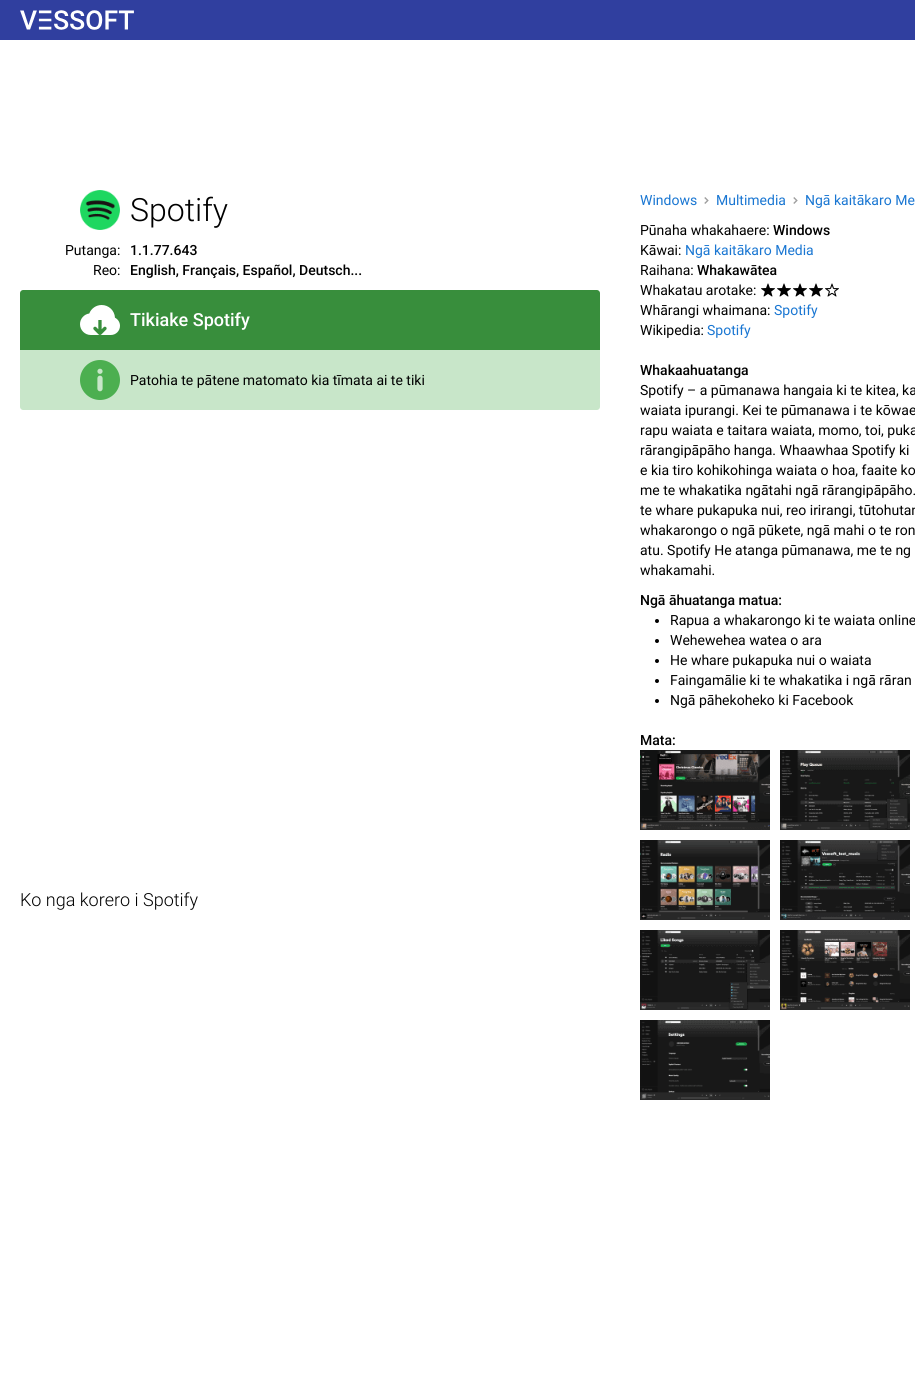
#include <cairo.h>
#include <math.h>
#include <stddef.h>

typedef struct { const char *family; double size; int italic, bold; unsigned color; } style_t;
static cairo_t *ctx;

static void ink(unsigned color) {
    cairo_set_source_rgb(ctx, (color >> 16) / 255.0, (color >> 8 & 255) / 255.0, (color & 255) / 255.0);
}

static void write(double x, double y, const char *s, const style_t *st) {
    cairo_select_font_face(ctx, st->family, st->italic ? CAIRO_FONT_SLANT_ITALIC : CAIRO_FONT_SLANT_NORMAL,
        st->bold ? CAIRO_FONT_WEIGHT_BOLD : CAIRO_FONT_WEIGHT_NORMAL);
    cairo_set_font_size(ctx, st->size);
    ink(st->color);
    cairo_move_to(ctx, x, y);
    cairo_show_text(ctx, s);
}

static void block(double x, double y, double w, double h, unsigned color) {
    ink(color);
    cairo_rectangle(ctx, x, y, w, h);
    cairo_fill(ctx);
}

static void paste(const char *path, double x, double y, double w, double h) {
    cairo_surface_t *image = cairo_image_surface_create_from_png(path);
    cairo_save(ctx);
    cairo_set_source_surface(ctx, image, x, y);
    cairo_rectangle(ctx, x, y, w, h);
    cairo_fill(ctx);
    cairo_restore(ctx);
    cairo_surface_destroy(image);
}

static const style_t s1 = {"Roboto Light", 32, 0, 0, 0x000000};
static const style_t s2 = {"Roboto", 14, 0, 0, 0x000000};
static const style_t s3 = {"Roboto Medium", 14, 0, 0, 0x000000};
static const style_t s4 = {"Roboto Medium", 18, 0, 0, 0xffffff};
static const style_t s5 = {"Roboto Light", 18, 0, 0, 0x000000};
static const style_t s6 = {"Roboto", 14, 0, 0, 0x1976d2};

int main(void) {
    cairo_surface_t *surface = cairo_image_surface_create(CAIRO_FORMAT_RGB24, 915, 1395);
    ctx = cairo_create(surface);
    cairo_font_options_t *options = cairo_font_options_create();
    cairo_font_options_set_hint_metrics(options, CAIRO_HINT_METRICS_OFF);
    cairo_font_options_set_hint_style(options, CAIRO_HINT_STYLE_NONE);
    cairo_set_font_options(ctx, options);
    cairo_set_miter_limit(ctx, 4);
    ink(0xffffff);
    cairo_paint(ctx);
    block(0, 0, 915, 40, 0x303f9f);
    paste("pic1.png", 20, 10, 114, 20);
    paste("pic2.png", 80, 190, 40, 40);
    write(130, 221, "Spotify", &s1);
    write(65, 255, "Putanga:", &s2);
    write(130, 255, "1.1.77.643", &s3);
    write(93, 275, "Reo:", &s2);
    write(130, 275, "English, Français, Español, Deutsch...", &s3);
    ink(0x388e3c);
    cairo_new_path(ctx);
    cairo_move_to(ctx, 23, 290);
    cairo_line_to(ctx, 597, 290);
    cairo_curve_to(ctx, 598.5, 290, 600, 291.5, 600, 293);
    cairo_line_to(ctx, 600, 350);
    cairo_line_to(ctx, 20, 350);
    cairo_line_to(ctx, 20, 293);
    cairo_curve_to(ctx, 20, 291.5, 21.5, 290, 23, 290);
    cairo_close_path(ctx);
    cairo_fill(ctx);
    paste("pic3.png", 80, 305, 40, 30);
    write(130, 326, "Tikiake Spotify", &s4);
    ink(0xc8e6c9);
    cairo_new_path(ctx);
    cairo_move_to(ctx, 20, 350);
    cairo_line_to(ctx, 600, 350);
    cairo_line_to(ctx, 600, 407);
    cairo_curve_to(ctx, 600, 408.5, 598.5, 410, 597, 410);
    cairo_line_to(ctx, 23, 410);
    cairo_curve_to(ctx, 21.5, 410, 20, 408.5, 20, 407);
    cairo_close_path(ctx);
    cairo_fill(ctx);
    paste("pic4.png", 80, 360, 40, 40);
    write(130, 385, "Patohia te pātene matomato kia tīmata ai te tiki", &s2);
    write(20, 906, "Ko nga korero i Spotify", &s5);
    write(640, 205, "Windows", &s6);
    paste("pic5.png", 704, 197, 5, 7);
    write(716, 205, "Multimedia", &s6);
    paste("pic5.png", 793, 197, 5, 7);
    write(805, 205, "Ngā kaitākaro Me", &s6);
    write(640, 235, "Pūnaha whakahaere:", &s2);
    write(773, 235, "Windows", &s3);
    write(640, 255, "Kāwai:", &s2);
    write(685, 255, "Ngā kaitākaro Media", &s6);
    write(640, 275, "Raihana:", &s2);
    write(697, 275, "Whakawātea", &s3);
    write(640, 295, "Whakatau arotake:", &s2);
    paste("pic6.png", 761, 283, 14, 14);
    paste("pic6.png", 777, 283, 14, 14);
    paste("pic6.png", 793, 283, 14, 14);
    paste("pic6.png", 809, 283, 14, 14);
    paste("pic7.png", 825, 283, 14, 14);
    write(640, 315, "Whārangi whaimana:", &s2);
    write(774, 315, "Spotify", &s6);
    write(640, 335, "Wikipedia:", &s2);
    write(707, 335, "Spotify", &s6);
    write(640, 375, "Whakaahuatanga", &s3);
    write(640, 395, "Spotify – a pūmanawa hangaia ki te kitea, ka", &s2);
    write(640, 415, "waiata ipurangi. Kei te pūmanawa i te kōwae", &s2);
    write(640, 435, "rapu waiata e taitara waiata, momo, toi, puka", &s2);
    write(640, 455, "rārangipāpāho hanga. Whaawhaa Spotify ki", &s2);
    write(640, 475, "e kia tiro kohikohinga waiata o hoa, faaite ko", &s2);
    write(640, 495, "me te whakatika ngātahi ngā rārangipāpāho.", &s2);
    write(640, 515, "te whare pukapuka nui, reo irirangi, tūtohutan", &s2);
    write(640, 535, "whakarongo o ngā pūkete, ngā mahi o te ron", &s2);
    write(640, 555, "atu. Spotify He atanga pūmanawa, me te ng", &s2);
    write(640, 575, "whakamahi.", &s2);
    write(640, 605, "Ngā āhuatanga matua:", &s3);
    cairo_new_path(ctx);
    cairo_arc(ctx, 657, 621, 2, 0, 2 * M_PI);
    cairo_fill(ctx);
    write(670, 625, "Rapua a whakarongo ki te waiata online", &s2);
    cairo_new_path(ctx);
    cairo_arc(ctx, 657, 641, 2, 0, 2 * M_PI);
    cairo_fill(ctx);
    write(670, 645, "Wehewehea watea o ara", &s2);
    cairo_new_path(ctx);
    cairo_arc(ctx, 657, 661, 2, 0, 2 * M_PI);
    cairo_fill(ctx);
    write(670, 665, "He whare pukapuka nui o waiata", &s2);
    cairo_new_path(ctx);
    cairo_arc(ctx, 657, 681, 2, 0, 2 * M_PI);
    cairo_fill(ctx);
    write(670, 685, "Faingamālie ki te whakatika i ngā rāran", &s2);
    cairo_new_path(ctx);
    cairo_arc(ctx, 657, 701, 2, 0, 2 * M_PI);
    cairo_fill(ctx);
    write(670, 705, "Ngā pāhekoheko ki Facebook", &s2);
    write(640, 745, "Mata:", &s3);
    paste("pic8.png", 640, 750, 130, 80);
    paste("pic9.png", 780, 750, 130, 80);
    paste("pic10.png", 640, 840, 130, 80);
    paste("pic11.png", 780, 840, 130, 80);
    paste("pic12.png", 640, 930, 130, 80);
    paste("pic13.png", 780, 930, 130, 80);
    paste("pic14.png", 640, 1020, 130, 80);
    cairo_surface_write_to_png(surface, "screenshot.png");
    cairo_font_options_destroy(options);
    cairo_destroy(ctx);
    cairo_surface_destroy(surface);
    return 0;
}
